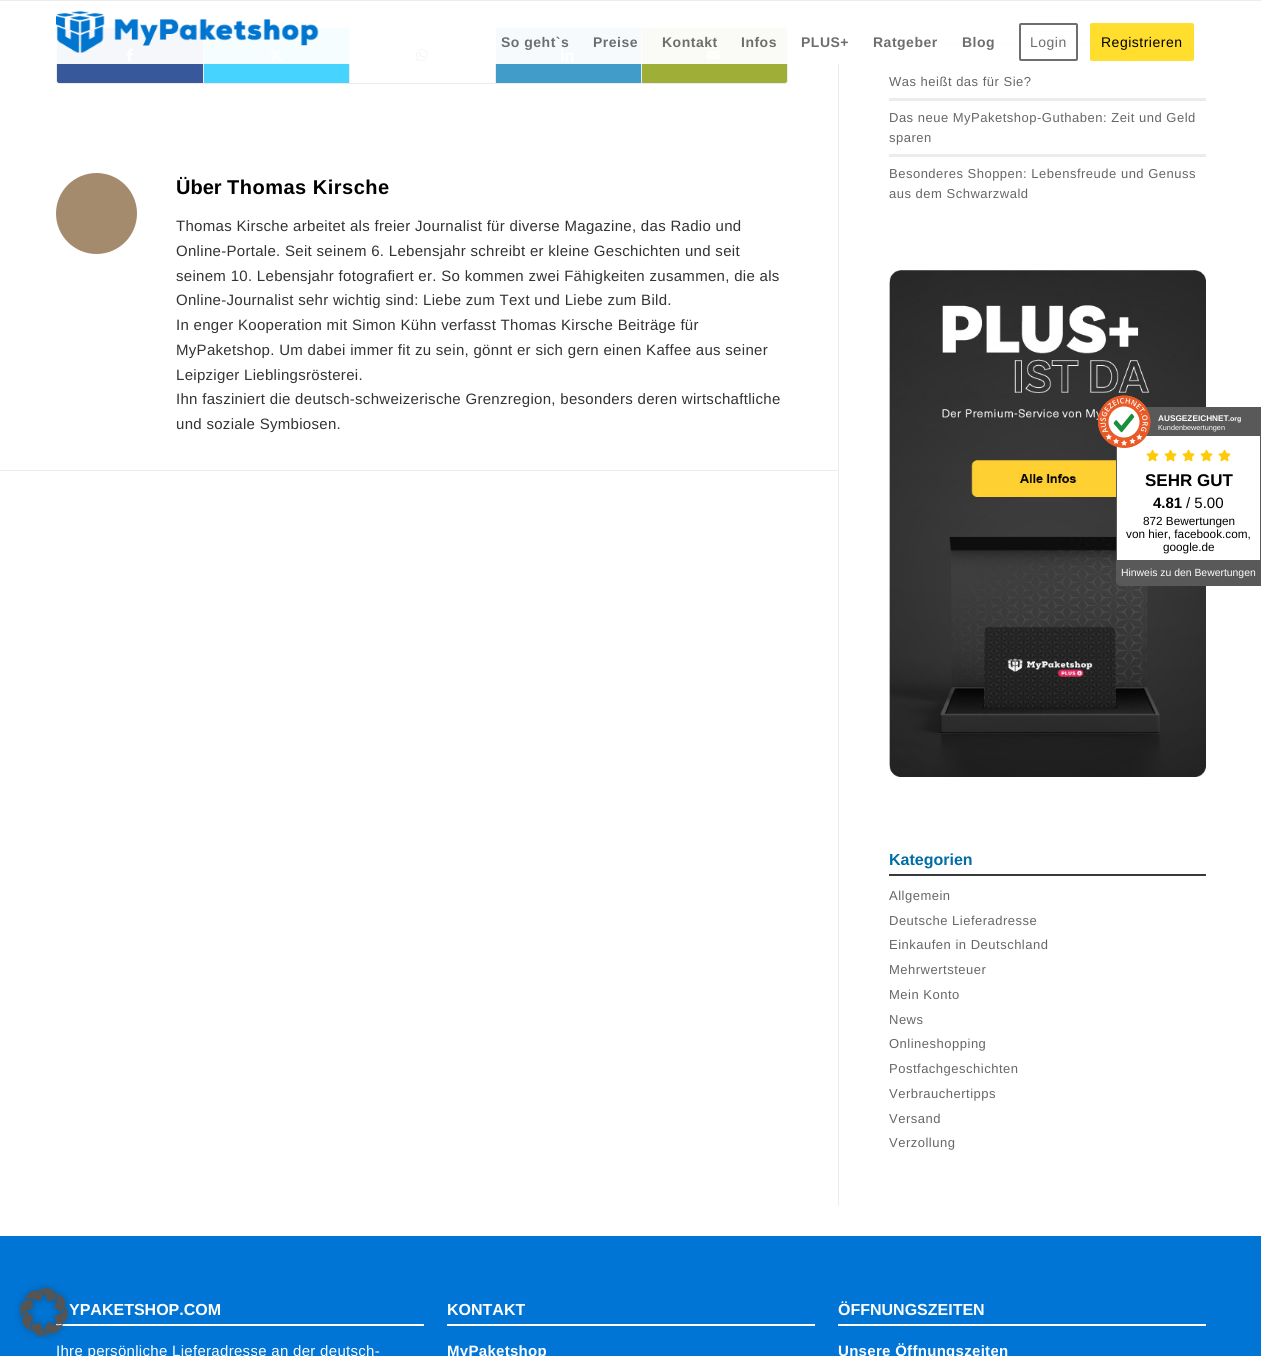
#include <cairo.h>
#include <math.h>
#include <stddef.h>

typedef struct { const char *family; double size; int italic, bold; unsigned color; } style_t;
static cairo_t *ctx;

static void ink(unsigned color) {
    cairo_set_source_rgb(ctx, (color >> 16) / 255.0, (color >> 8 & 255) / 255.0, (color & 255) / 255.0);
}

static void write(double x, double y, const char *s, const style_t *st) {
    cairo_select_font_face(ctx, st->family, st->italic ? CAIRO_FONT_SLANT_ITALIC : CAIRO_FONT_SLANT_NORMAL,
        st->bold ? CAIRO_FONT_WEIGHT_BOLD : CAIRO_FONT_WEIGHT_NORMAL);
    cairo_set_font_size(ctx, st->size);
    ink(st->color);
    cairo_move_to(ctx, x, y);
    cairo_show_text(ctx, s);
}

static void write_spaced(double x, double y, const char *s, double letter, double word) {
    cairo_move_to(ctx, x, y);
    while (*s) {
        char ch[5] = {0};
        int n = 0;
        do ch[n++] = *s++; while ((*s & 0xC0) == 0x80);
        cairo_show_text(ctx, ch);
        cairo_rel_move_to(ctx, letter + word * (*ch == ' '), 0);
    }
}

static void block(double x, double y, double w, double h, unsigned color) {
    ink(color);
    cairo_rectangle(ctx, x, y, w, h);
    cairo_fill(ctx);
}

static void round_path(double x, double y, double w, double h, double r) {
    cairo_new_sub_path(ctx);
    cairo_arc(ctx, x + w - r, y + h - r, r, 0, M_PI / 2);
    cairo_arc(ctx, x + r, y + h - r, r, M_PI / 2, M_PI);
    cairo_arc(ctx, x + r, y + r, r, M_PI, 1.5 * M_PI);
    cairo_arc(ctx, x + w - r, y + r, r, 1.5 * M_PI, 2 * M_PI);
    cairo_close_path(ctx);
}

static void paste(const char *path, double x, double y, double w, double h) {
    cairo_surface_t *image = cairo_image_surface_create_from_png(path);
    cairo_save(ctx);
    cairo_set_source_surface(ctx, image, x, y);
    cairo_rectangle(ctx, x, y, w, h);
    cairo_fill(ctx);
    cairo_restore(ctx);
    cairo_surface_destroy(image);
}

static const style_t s1 = {"Liberation Sans", 20, 0, 1, 0x000000};
static const style_t s2 = {"Liberation Sans", 16, 0, 1, 0x006da7};
static const style_t s3 = {"Liberation Sans", 16, 0, 1, 0xffffff};
static const style_t s4 = {"Liberation Sans", 8.25, 0, 1, 0xffffff};
static const style_t s5 = {"Liberation Sans", 7, 0, 1, 0xffffff};
static const style_t s6 = {"Liberation Sans", 7.25, 0, 0, 0xffffff};
static const style_t s7 = {"Liberation Sans", 17, 0, 1, 0x000000};
static const style_t s8 = {"Liberation Sans", 15, 0, 1, 0x000000};
static const style_t s9 = {"Liberation Sans", 15, 0, 0, 0x000000};
static const style_t s10 = {"Liberation Sans", 11.75, 0, 0, 0x000000};
static const style_t s11 = {"Liberation Sans", 10.4, 0, 0, 0xffffff};

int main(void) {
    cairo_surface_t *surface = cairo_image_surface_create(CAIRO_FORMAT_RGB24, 1261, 1356);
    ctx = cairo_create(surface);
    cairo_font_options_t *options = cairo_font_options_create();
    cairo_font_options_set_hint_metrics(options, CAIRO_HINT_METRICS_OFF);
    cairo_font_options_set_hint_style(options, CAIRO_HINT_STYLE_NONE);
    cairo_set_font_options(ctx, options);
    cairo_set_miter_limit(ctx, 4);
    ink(0xffffff);
    cairo_paint(ctx);
    round_path(56.5, 27.5, 731, 56, 2.5);
    ink(0xececec);
    cairo_set_line_width(ctx, 1);
    cairo_stroke(ctx);
    ink(0x37589b);
    cairo_new_path(ctx);
    cairo_move_to(ctx, 59, 28);
    cairo_line_to(ctx, 203, 28);
    cairo_line_to(ctx, 203, 83);
    cairo_line_to(ctx, 59, 83);
    cairo_curve_to(ctx, 58, 83, 57, 82, 57, 81);
    cairo_line_to(ctx, 57, 30);
    cairo_curve_to(ctx, 57, 29, 58, 28, 59, 28);
    cairo_close_path(ctx);
    cairo_fill(ctx);
    paste("pic2.png", 126, 48, 7, 14);
    block(203, 39, 1, 44, 0xececec);
    block(204, 28, 145, 55, 0x46d4fe);
    paste("pic3.png", 269, 49, 14, 12);
    block(349, 28, 1, 55, 0xececec);
    paste("pic4.png", 416, 49, 12, 13);
    block(495, 28, 1, 55, 0xececec);
    block(496, 28, 145, 55, 0x419cca);
    paste("pic5.png", 561, 48, 13, 14);
    block(641, 28, 1, 55, 0xececec);
    ink(0x9fae37);
    cairo_new_path(ctx);
    cairo_move_to(ctx, 642, 28);
    cairo_line_to(ctx, 785, 28);
    cairo_curve_to(ctx, 786, 28, 787, 29, 787, 30);
    cairo_line_to(ctx, 787, 81);
    cairo_curve_to(ctx, 787, 82, 786, 83, 785, 83);
    cairo_line_to(ctx, 642, 83);
    cairo_close_path(ctx);
    cairo_fill(ctx);
    paste("pic6.png", 707, 51, 13, 9);
    block(838, 0, 1, 1206, 0xececec);
    block(889, 42, 317, 3, 0xececec);
    cairo_set_source_rgba(ctx, 1, 1, 1, 0.95);
    cairo_rectangle(ctx, 56, 1, 1150, 63);
    cairo_fill(ctx);
    block(0, 0, 1261, 1, 0xececec);
    paste("pic1.png", 56, 11, 263, 42);
    cairo_select_font_face(ctx, "Liberation Sans", CAIRO_FONT_SLANT_NORMAL, CAIRO_FONT_WEIGHT_BOLD);
    cairo_set_font_size(ctx, 14);
    ink(0x6e6e6e);
    write_spaced(501, 47, "So geht`s", 0.5, 0);
    write_spaced(593, 47, "Preise", 0.5, 0);
    write_spaced(662, 47, "Kontakt", 0.5, 0);
    write_spaced(741, 47, "Infos", 0.5, 0);
    write_spaced(801, 47, "PLUS+", 0.5, 0);
    write_spaced(873, 47, "Ratgeber", 0.5, 0);
    write_spaced(962, 47, "Blog", 0.5, 0);
    round_path(1020, 24, 57, 36, 1);
    cairo_set_line_width(ctx, 2);
    cairo_stroke(ctx);
    cairo_select_font_face(ctx, "Liberation Sans", CAIRO_FONT_SLANT_NORMAL, CAIRO_FONT_WEIGHT_NORMAL);
    write_spaced(1030, 47, "Login", 0.5, 0);
    ink(0xffde2e);
    round_path(1091, 24, 102, 36, 1);
    cairo_fill_preserve(ctx);
    cairo_stroke(ctx);
    ink(0x000000);
    write_spaced(1101, 47, "Registrieren", 0.5, 0);
    ink(0xa48b6e);
    cairo_new_path(ctx);
    cairo_arc(ctx, 96.5, 213.5, 40.5, 0, 2 * M_PI);
    cairo_fill(ctx);
    write(176, 194, "Über", &s1);
    write_spaced(227, 194, "Thomas Kirsche", 0.5, 0);
    cairo_select_font_face(ctx, "Liberation Sans", CAIRO_FONT_SLANT_NORMAL, CAIRO_FONT_WEIGHT_NORMAL);
    cairo_set_font_size(ctx, 15);
    ink(0x333333);
    write_spaced(176, 231, "Thomas Kirsche arbeitet als freier Journalist für diverse Magazine, das Radio und", 0.3, 0);
    write_spaced(176, 256, "Online-Portale. Seit seinem 6. Lebensjahr schreibt er kleine Geschichten und seit", 0.3, 0);
    write_spaced(176, 281, "seinem 10. Lebensjahr fotografiert er. So kommen zwei Fähigkeiten zusammen, die als", 0.3, 0);
    write_spaced(176, 305, "Online-Journalist sehr wichtig sind: Liebe zum Text und Liebe zum Bild.", 0.3, 0);
    write_spaced(176, 330, "In enger Kooperation mit Simon Kühn verfasst Thomas Kirsche Beiträge für", 0.3, 0);
    write_spaced(176, 355, "MyPaketshop. Um dabei immer fit zu sein, gönnt er sich gern einen Kaffee aus seiner", 0.3, 0);
    write_spaced(176, 380, "Leipziger Lieblingsrösterei.", 0.3, 0);
    write_spaced(176, 404, "Ihn fasziniert die deutsch-schweizerische Grenzregion, besonders deren wirtschaftliche", 0.3, 0);
    write_spaced(176, 429, "und soziale Symbiosen.", 0.3, 0);
    block(0, 470, 838, 1, 0xececec);
    cairo_set_font_size(ctx, 13);
    ink(0x666666);
    write_spaced(889, 86, "Was heißt das für Sie?", 0.5, 0);
    block(889, 98, 317, 3, 0xececec);
    ink(0x666666);
    write_spaced(889, 122, "Das neue MyPaketshop-Guthaben: Zeit und Geld", 0.5, 0);
    write_spaced(889, 142, "sparen", 0.5, 0);
    block(889, 154, 317, 3, 0xececec);
    ink(0x666666);
    write_spaced(889, 178, "Besonderes Shoppen: Lebensfreude und Genuss", 0.5, 0);
    write_spaced(889, 198, "aus dem Schwarzwald", 0.5, 0);
    paste("pic7.png", 889, 270, 317, 507);
    block(889, 874, 317, 2, 0x3a3a3a);
    write(889, 865, "Kategorien", &s2);
    cairo_select_font_face(ctx, "Liberation Sans", CAIRO_FONT_SLANT_NORMAL, CAIRO_FONT_WEIGHT_NORMAL);
    cairo_set_font_size(ctx, 13);
    ink(0x666666);
    write_spaced(889, 900, "Allgemein", 0.5, 0);
    write_spaced(889, 925, "Deutsche Lieferadresse", 0.5, 0);
    write_spaced(889, 949, "Einkaufen in Deutschland", 0.5, 0);
    write_spaced(889, 974, "Mehrwertsteuer", 0.5, 0);
    write_spaced(889, 999, "Mein Konto", 0.5, 0);
    write_spaced(889, 1024, "News", 0.5, 0);
    write_spaced(889, 1048, "Onlineshopping", 0.5, 0);
    write_spaced(889, 1073, "Postfachgeschichten", 0.5, 0);
    write_spaced(889, 1098, "Verbrauchertipps", 0.5, 0);
    write_spaced(889, 1123, "Versand", 0.5, 0);
    write_spaced(889, 1147, "Verzollung", 0.5, 0);
    block(0, 1236, 1261, 120, 0x0075d5);
    block(56, 1324, 368, 2, 0xffffff);
    write(69, 1315, "YPAKETSHOP.COM", &s3);
    cairo_select_font_face(ctx, "Liberation Sans", CAIRO_FONT_SLANT_NORMAL, CAIRO_FONT_WEIGHT_NORMAL);
    cairo_set_font_size(ctx, 15);
    write_spaced(56, 1356, "Ihre persönliche Lieferadresse an der deutsch-", 0.3, 0);
    block(447, 1324, 368, 2, 0xffffff);
    write(447, 1315, "KONTAKT", &s3);
    cairo_set_font_size(ctx, 15);
    write_spaced(447, 1356, "MyPaketshop", 0.3, 0);
    block(838, 1324, 368, 2, 0xffffff);
    write(838, 1315, "ÖFFNUNGSZEITEN", &s3);
    cairo_set_font_size(ctx, 15);
    write_spaced(838, 1356, "Unsere Öffnungszeiten", 0.3, 0);
    cairo_new_path(ctx);
    cairo_move_to(ctx, 1121, 407.5);
    cairo_line_to(ctx, 1260.5, 407.5);
    cairo_line_to(ctx, 1260.5, 585.5);
    cairo_line_to(ctx, 1121, 585.5);
    cairo_curve_to(ctx, 1118.5, 585.5, 1116.5, 583.5, 1116.5, 581);
    cairo_line_to(ctx, 1116.5, 412);
    cairo_curve_to(ctx, 1116.5, 409.5, 1118.5, 407.5, 1121, 407.5);
    cairo_close_path(ctx);
    ink(0x595959);
    cairo_set_line_width(ctx, 1);
    cairo_stroke(ctx);
    paste("pic8.png", 1098, 395, 48, 52);
    cairo_new_path(ctx);
    cairo_move_to(ctx, 1121, 407.5);
    cairo_line_to(ctx, 1260.5, 407.5);
    cairo_line_to(ctx, 1260.5, 585.5);
    cairo_line_to(ctx, 1121, 585.5);
    cairo_curve_to(ctx, 1118.5, 585.5, 1116.5, 583.5, 1116.5, 581);
    cairo_line_to(ctx, 1116.5, 412);
    cairo_curve_to(ctx, 1116.5, 409.5, 1118.5, 407.5, 1121, 407.5);
    cairo_close_path(ctx);
    cairo_stroke(ctx);
    block(1146, 408, 114, 28, 0x595959);
    block(1117, 436, 89, 124, 0xffffff);
    paste("pic9.png", 1098, 395, 53, 53);
    write(1158, 421, "AUSGEZEICHNET", &s4);
    write(1228, 421, ".org", &s5);
    write(1158, 430, "Kundenbewertungen", &s6);
    paste("pic10.png", 1146, 449, 13, 13);
    paste("pic10.png", 1164, 449, 13, 13);
    paste("pic10.png", 1182, 449, 13, 13);
    paste("pic10.png", 1200, 449, 13, 13);
    paste("pic10.png", 1218, 449, 13, 13);
    write(1145, 486, "SEHR GUT", &s7);
    write(1153, 508, "4.81", &s8);
    write(1186, 508, "/ 5.00", &s9);
    write(1143, 525, "872 Bewertungen", &s10);
    write(1126, 538, "von hier, facebook.com,", &s10);
    write(1163, 551, "google.de", &s10);
    ink(0x595959);
    cairo_new_path(ctx);
    cairo_move_to(ctx, 1117, 560);
    cairo_line_to(ctx, 1260, 560);
    cairo_line_to(ctx, 1260, 585);
    cairo_line_to(ctx, 1122, 585);
    cairo_curve_to(ctx, 1119, 585, 1117, 583, 1117, 580);
    cairo_close_path(ctx);
    cairo_fill(ctx);
    write(1121, 576, "Hinweis zu den Bewertungen", &s11);
    paste("pic11.png", 15, 1283, 57, 57);
    cairo_surface_write_to_png(surface, "screenshot.png");
    cairo_font_options_destroy(options);
    cairo_destroy(ctx);
    cairo_surface_destroy(surface);
    return 0;
}
